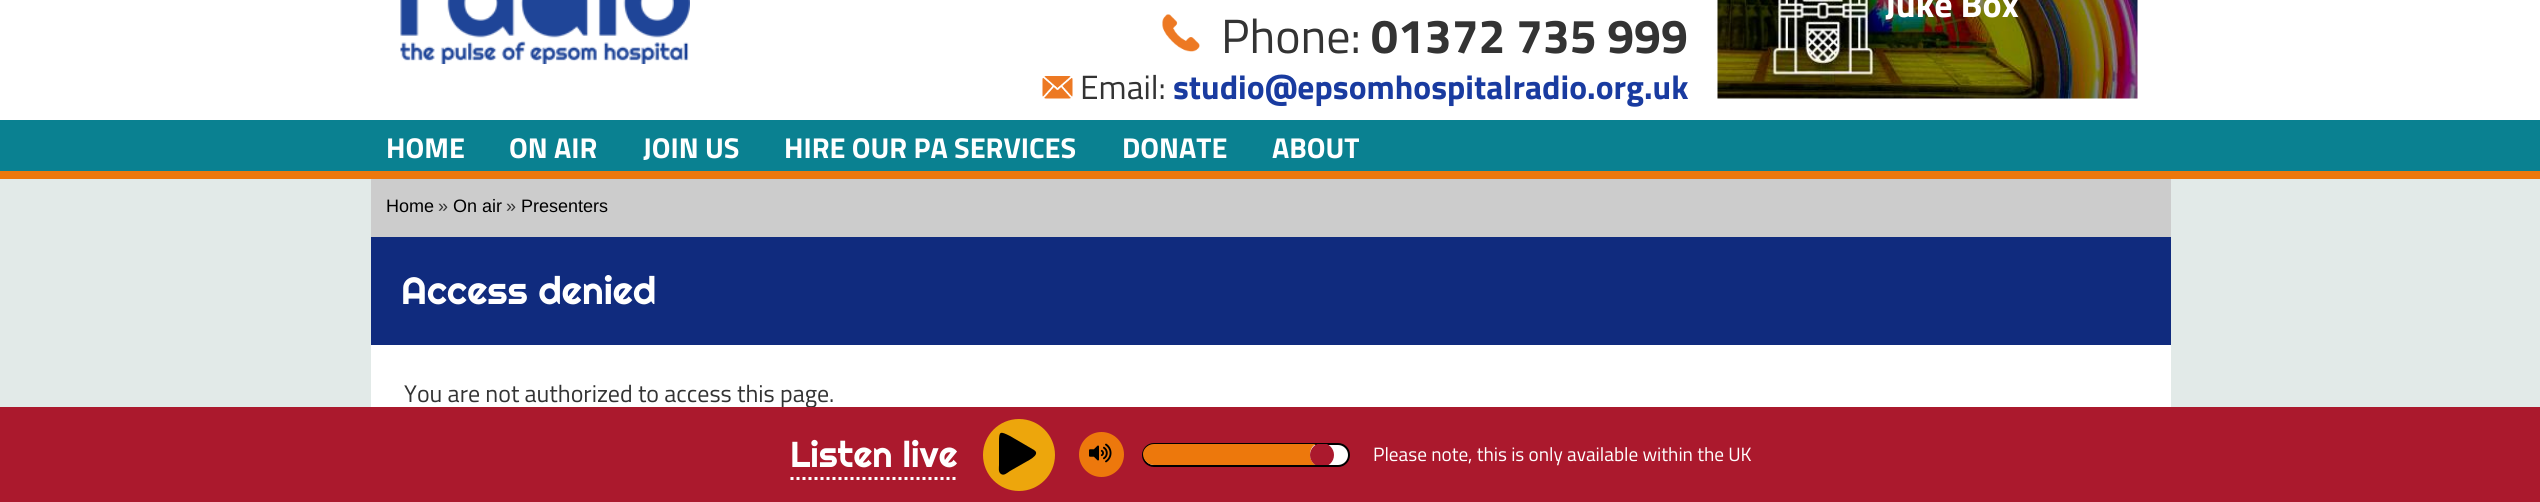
#include <cairo.h>
#include <math.h>
#include <stddef.h>

typedef struct { const char *family; double size; int italic, bold; unsigned color; } style_t;
static cairo_t *ctx;

static void ink(unsigned color) {
    cairo_set_source_rgb(ctx, (color >> 16) / 255.0, (color >> 8 & 255) / 255.0, (color & 255) / 255.0);
}

static void write(double x, double y, const char *s, const style_t *st) {
    cairo_select_font_face(ctx, st->family, st->italic ? CAIRO_FONT_SLANT_ITALIC : CAIRO_FONT_SLANT_NORMAL,
        st->bold ? CAIRO_FONT_WEIGHT_BOLD : CAIRO_FONT_WEIGHT_NORMAL);
    cairo_set_font_size(ctx, st->size);
    ink(st->color);
    cairo_move_to(ctx, x, y);
    cairo_show_text(ctx, s);
}

static void block(double x, double y, double w, double h, unsigned color) {
    ink(color);
    cairo_rectangle(ctx, x, y, w, h);
    cairo_fill(ctx);
}

static void round_path(double x, double y, double w, double h, double r) {
    cairo_new_sub_path(ctx);
    cairo_arc(ctx, x + w - r, y + h - r, r, 0, M_PI / 2);
    cairo_arc(ctx, x + r, y + h - r, r, M_PI / 2, M_PI);
    cairo_arc(ctx, x + r, y + r, r, M_PI, 1.5 * M_PI);
    cairo_arc(ctx, x + w - r, y + r, r, 1.5 * M_PI, 2 * M_PI);
    cairo_close_path(ctx);
}

static void paste(const char *path, double x, double y, double w, double h) {
    cairo_surface_t *image = cairo_image_surface_create_from_png(path);
    cairo_save(ctx);
    cairo_set_source_surface(ctx, image, x, y);
    cairo_rectangle(ctx, x, y, w, h);
    cairo_fill(ctx);
    cairo_restore(ctx);
    cairo_surface_destroy(image);
}

static const style_t s1 = {"Titillium Web", 36, 0, 1, 0xffffff};
static const style_t s2 = {"Titillium Web", 48, 0, 0, 0x333333};
static const style_t s3 = {"Titillium Web", 48, 0, 1, 0x333333};
static const style_t s4 = {"Titillium Web", 33.6, 0, 0, 0x333333};
static const style_t s5 = {"Titillium Web", 33.6, 0, 1, 0x193ba0};
static const style_t s6 = {"Titillium Web", 28.75, 0, 1, 0xffffff};
static const style_t s7 = {"Liberation Sans", 18, 0, 0, 0x000000};
static const style_t s8 = {"Liberation Sans", 18, 0, 0, 0x333333};
static const style_t s9 = {"Righteous", 38.5, 0, 0, 0xffffff};
static const style_t s10 = {"Titillium Web", 24, 0, 0, 0x333333};
static const style_t s11 = {"Righteous", 36, 0, 0, 0xffffff};
static const style_t s12 = {"Titillium Web", 19.25, 0, 0, 0xffffff};

int main(void) {
    cairo_surface_t *surface = cairo_image_surface_create(CAIRO_FORMAT_RGB24, 2540, 502);
    ctx = cairo_create(surface);
    cairo_font_options_t *options = cairo_font_options_create();
    cairo_font_options_set_hint_metrics(options, CAIRO_HINT_METRICS_OFF);
    cairo_font_options_set_hint_style(options, CAIRO_HINT_STYLE_NONE);
    cairo_set_font_options(ctx, options);
    cairo_set_miter_limit(ctx, 4);
    ink(0xe2eae8);
    cairo_paint(ctx);
    block(0, 0, 2540, 120, 0xffffff);
    paste("pic1.png", 400, 0, 290, 64);
    paste("pic2.png", 1717, 0, 421, 99);
    write(1885, 17, "Juke Box", &s1);
    paste("pic3.png", 1162, 14, 38, 38);
    write(1221, 53, "Phone:", &s2);
    write(1371, 53, "01372 735 999", &s3);
    paste("pic4.png", 1042, 76, 31, 23);
    write(1080, 99, "Email:", &s4);
    write(1173, 99, "studio@epsomhospitalradio.org.uk", &s5);
    block(0, 120, 2540, 51, 0x0a8191);
    block(0, 171, 2540, 8, 0xed780c);
    write(386, 158, "HOME", &s6);
    write(509, 158, "ON AIR", &s6);
    write(643, 158, "JOIN US", &s6);
    write(784, 158, "HIRE OUR PA SERVICES", &s6);
    write(1122, 158, "DONATE", &s6);
    write(1272, 158, "ABOUT", &s6);
    block(371, 179, 1800, 58, 0xcccccc);
    write(386, 212, "Home", &s7);
    write(438, 212, "»", &s8);
    write(453, 212, "On air", &s7);
    write(506, 212, "»", &s8);
    write(521, 212, "Presenters", &s7);
    block(371, 237, 1800, 108, 0x102b7e);
    write(401, 304, "Access denied", &s9);
    block(371, 345, 1800, 62, 0xffffff);
    write(404, 402, "You are not authorized to access this page.", &s10);
    block(0, 407, 2540, 95, 0xab192d);
    write(790, 467, "Listen live", &s11);
    cairo_new_path(ctx);
    cairo_move_to(ctx, 790.5, 478.5);
    cairo_line_to(ctx, 958.5, 478.5);
    cairo_set_line_width(ctx, 3);
    cairo_set_dash(ctx, (double[]){3, 3}, 2, 0);
    cairo_stroke(ctx);
    ink(0xeda60c);
    cairo_arc(ctx, 1019, 455, 36, 0, 2 * M_PI);
    cairo_fill(ctx);
    ink(0x000000);
    cairo_new_path(ctx);
    cairo_move_to(ctx, 1034, 450);
    cairo_curve_to(ctx, 1042, 455, 1025, 462, 1024, 463);
    cairo_line_to(ctx, 1010, 471);
    cairo_curve_to(ctx, 1007, 473, 1004, 476, 1001, 474);
    cairo_curve_to(ctx, 998, 472, 999, 468, 999, 465);
    cairo_line_to(ctx, 999, 442);
    cairo_curve_to(ctx, 999, 431, 1000, 431, 1010, 436);
    cairo_close_path(ctx);
    cairo_fill(ctx);
    ink(0xed780c);
    cairo_arc(ctx, 1101.5, 454.5, 22.5, 0, 2 * M_PI);
    cairo_fill(ctx);
    paste("pic5.png", 1089, 443, 23, 20);
    ink(0xffffff);
    round_path(1143, 444, 206, 22, 11);
    cairo_fill_preserve(ctx);
    ink(0x000000);
    cairo_set_line_width(ctx, 2);
    cairo_set_dash(ctx, NULL, 0, 0);
    cairo_stroke(ctx);
    ink(0xed780c);
    cairo_new_path(ctx);
    cairo_move_to(ctx, 1154, 444);
    cairo_curve_to(ctx, 1148, 444, 1143, 449, 1143, 454);
    cairo_curve_to(ctx, 1143, 460, 1148, 465, 1154, 465);
    cairo_line_to(ctx, 1316, 465);
    cairo_curve_to(ctx, 1308, 461, 1308, 448, 1316, 444);
    cairo_close_path(ctx);
    cairo_fill(ctx);
    cairo_save(ctx);
    round_path(1143, 444, 206, 21, 10.5);
    cairo_clip(ctx);
    ink(0xab192d);
    cairo_arc(ctx, 1322, 455, 12, 0, 2 * M_PI);
    cairo_fill(ctx);
    cairo_restore(ctx);
    write(1373, 461, "Please note, this is only available within the UK", &s12);
    cairo_surface_write_to_png(surface, "screenshot.png");
    cairo_font_options_destroy(options);
    cairo_destroy(ctx);
    cairo_surface_destroy(surface);
    return 0;
}
